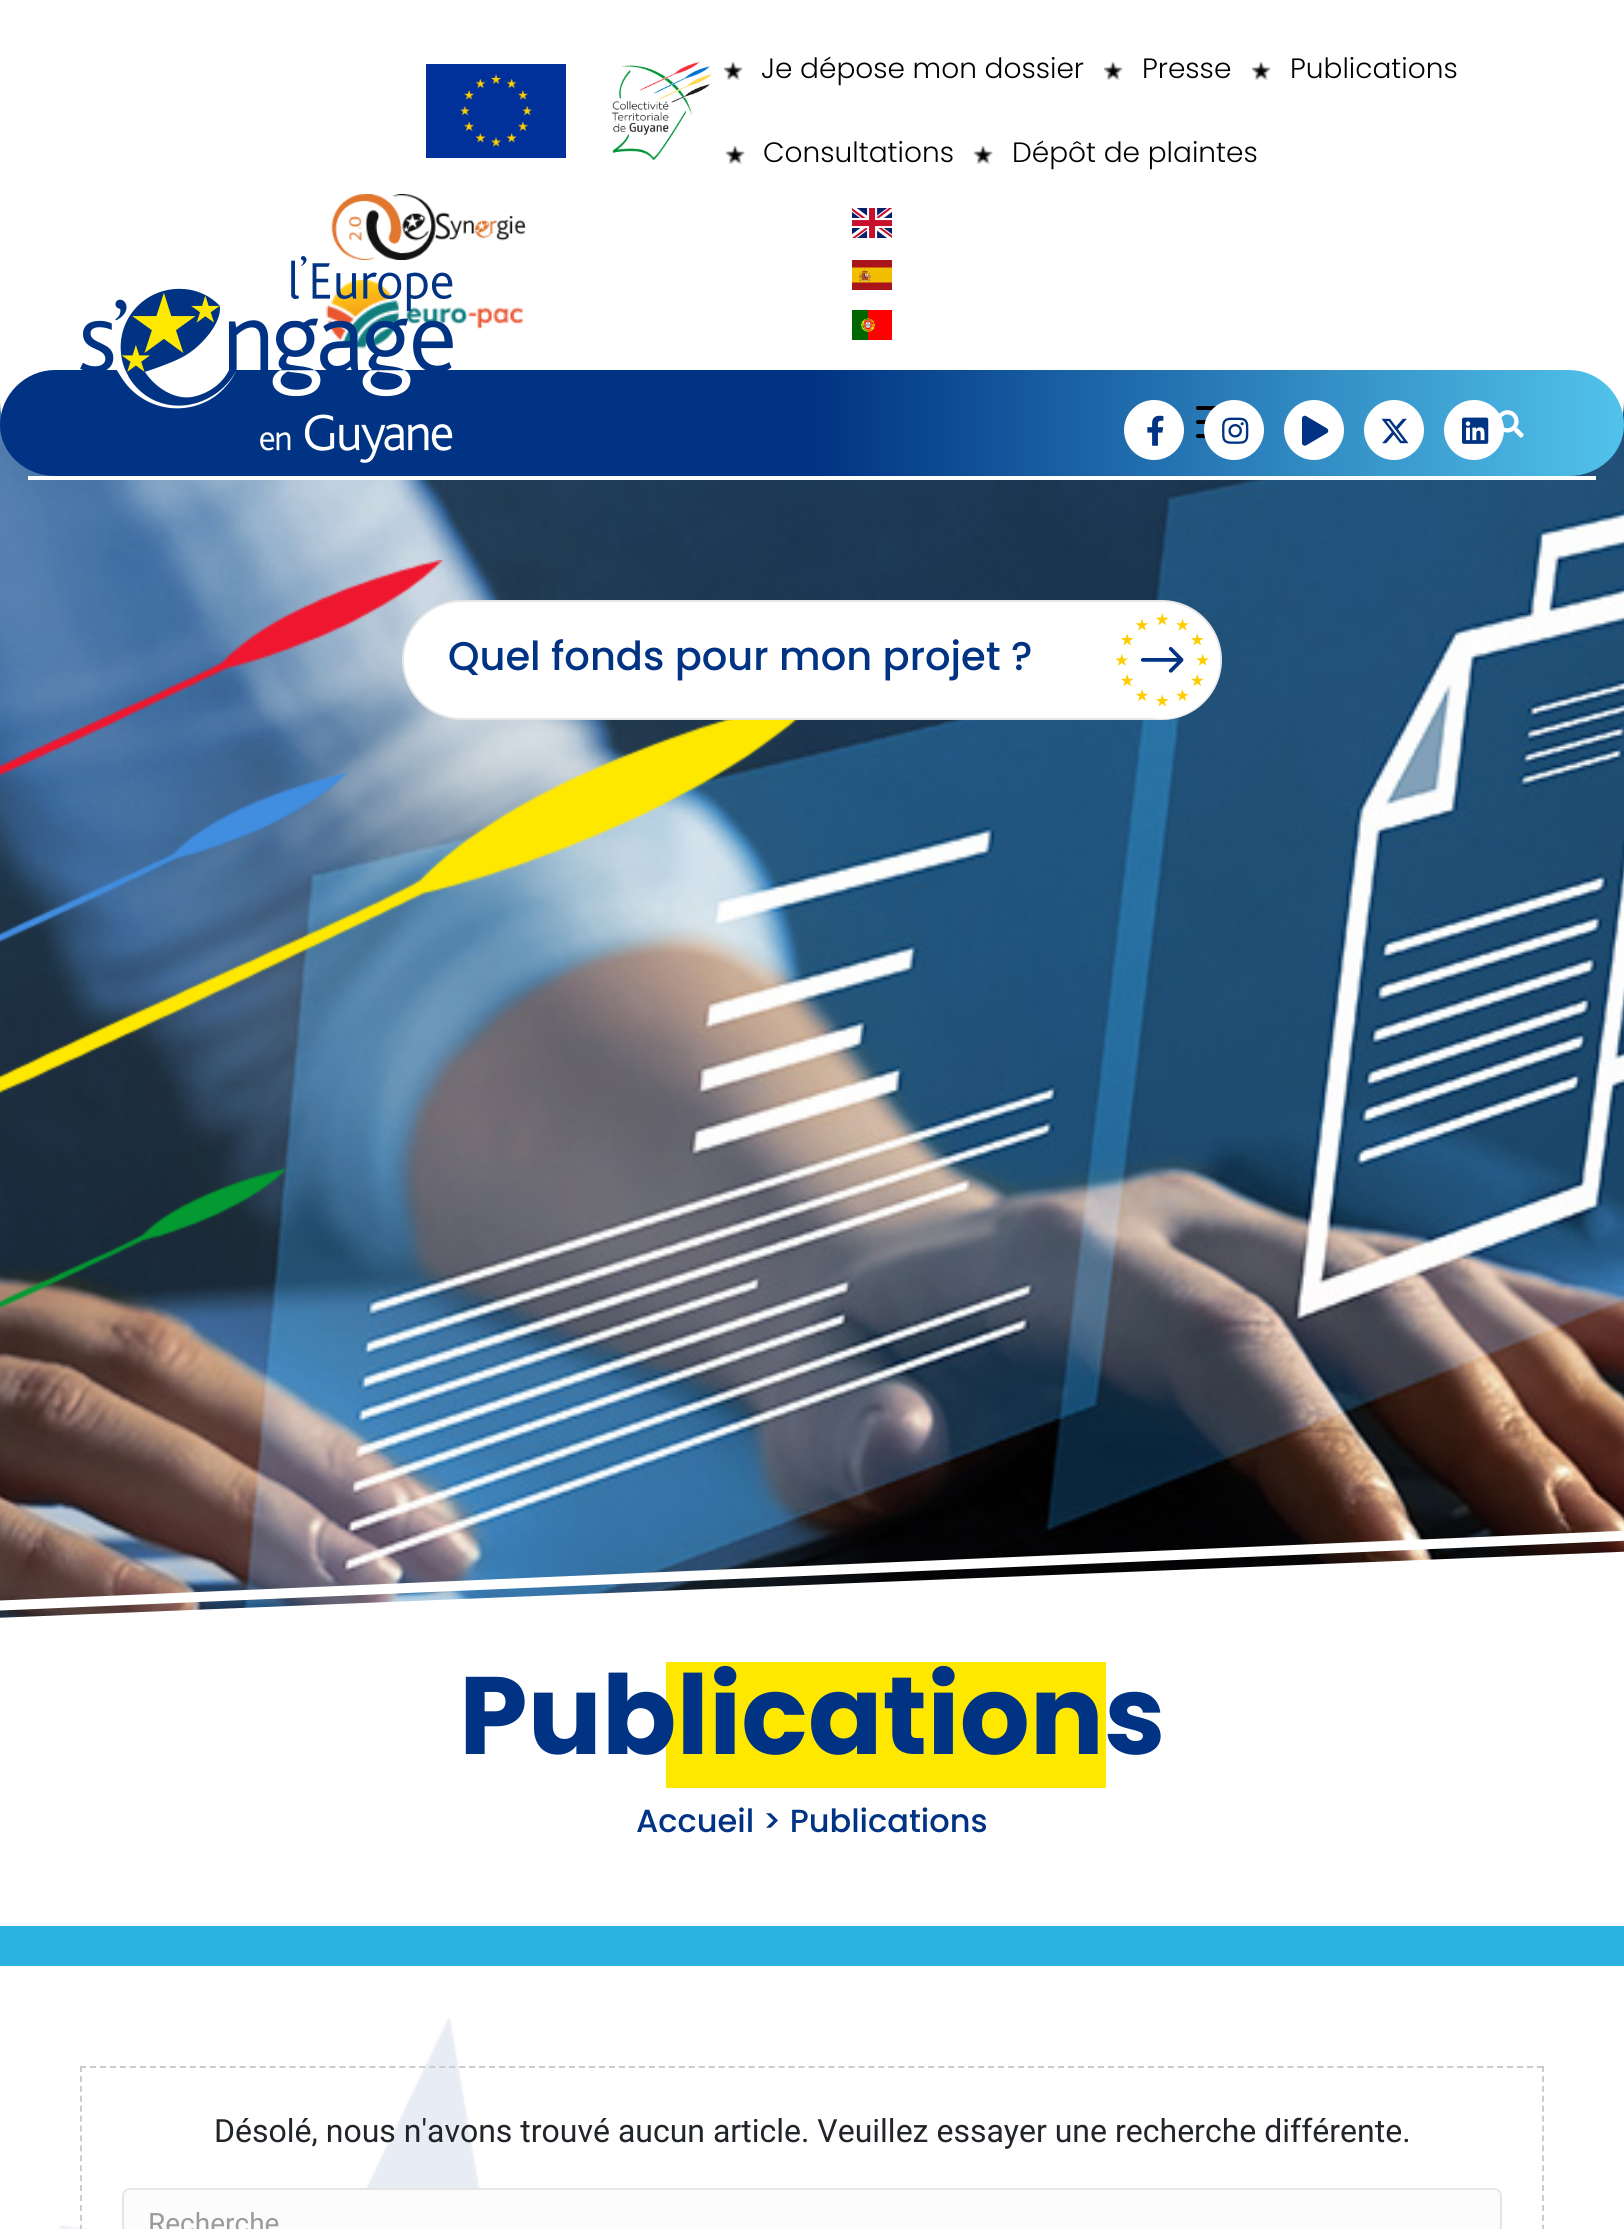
#include <cairo.h>
#include <math.h>
#include <stddef.h>

typedef struct { const char *family; double size; int italic, bold; unsigned color; } style_t;
static cairo_t *ctx;

static void ink(unsigned color) {
    cairo_set_source_rgb(ctx, (color >> 16) / 255.0, (color >> 8 & 255) / 255.0, (color & 255) / 255.0);
}

static void write(double x, double y, const char *s, const style_t *st) {
    cairo_select_font_face(ctx, st->family, st->italic ? CAIRO_FONT_SLANT_ITALIC : CAIRO_FONT_SLANT_NORMAL,
        st->bold ? CAIRO_FONT_WEIGHT_BOLD : CAIRO_FONT_WEIGHT_NORMAL);
    cairo_set_font_size(ctx, st->size);
    ink(st->color);
    cairo_move_to(ctx, x, y);
    cairo_show_text(ctx, s);
}

static void block(double x, double y, double w, double h, unsigned color) {
    ink(color);
    cairo_rectangle(ctx, x, y, w, h);
    cairo_fill(ctx);
}

static void round_path(double x, double y, double w, double h, double r) {
    cairo_new_sub_path(ctx);
    cairo_arc(ctx, x + w - r, y + h - r, r, 0, M_PI / 2);
    cairo_arc(ctx, x + r, y + h - r, r, M_PI / 2, M_PI);
    cairo_arc(ctx, x + r, y + r, r, M_PI, 1.5 * M_PI);
    cairo_arc(ctx, x + w - r, y + r, r, 1.5 * M_PI, 2 * M_PI);
    cairo_close_path(ctx);
}

static void paste(const char *path, double x, double y, double w, double h) {
    cairo_surface_t *image = cairo_image_surface_create_from_png(path);
    cairo_save(ctx);
    cairo_set_source_surface(ctx, image, x, y);
    cairo_rectangle(ctx, x, y, w, h);
    cairo_fill(ctx);
    cairo_restore(ctx);
    cairo_surface_destroy(image);
}

static const style_t s1 = {"Poppins Light", 28, 0, 0, 0x020202};
static const style_t s2 = {"Poppins Medium", 40, 0, 0, 0x003383};
static const style_t s3 = {"Poppins", 110, 0, 1, 0x003383};
static const style_t s4 = {"Poppins Medium", 32, 0, 0, 0x003383};
static const style_t s5 = {"Roboto", 32, 0, 0, 0x212529};
static const style_t s6 = {"Roboto", 28, 0, 0, 0x9b9b9b};

int main(void) {
    cairo_surface_t *surface = cairo_image_surface_create(CAIRO_FORMAT_RGB24, 1624, 2229);
    ctx = cairo_create(surface);
    cairo_font_options_t *options = cairo_font_options_create();
    cairo_font_options_set_hint_metrics(options, CAIRO_HINT_METRICS_OFF);
    cairo_font_options_set_hint_style(options, CAIRO_HINT_STYLE_NONE);
    cairo_set_font_options(ctx, options);
    cairo_set_miter_limit(ctx, 4);
    cairo_pattern_t *gradient;
    ink(0xffffff);
    cairo_paint(ctx);
    paste("pic1.png", 426, 64, 140, 94);
    paste("pic2.png", 612, 62, 100, 98);
    paste("pic3.png", 724, 62, 19, 18);
    write(761, 78, "Je dépose mon dossier", &s1);
    paste("pic3.png", 1104, 62, 19, 18);
    write(1142, 78, "Presse", &s1);
    paste("pic3.png", 1252, 62, 19, 18);
    write(1290, 78, "Publications", &s1);
    paste("pic3.png", 726, 146, 19, 18);
    write(763, 162, "Consultations", &s1);
    paste("pic3.png", 974, 146, 19, 18);
    write(1012, 162, "Dépôt de plaintes", &s1);
    paste("pic4.png", 331, 194, 195, 66);
    paste("pic5.png", 326, 280, 197, 69);
    paste("pic6.png", 852, 208, 40, 30);
    paste("pic7.png", 852, 260, 40, 30);
    paste("pic8.png", 852, 310, 40, 30);
    paste("pic17.png", 0, 400, 1624, 1218);
    ink(0xffffff);
    cairo_new_path(ctx);
    cairo_move_to(ctx, 0, 370);
    cairo_line_to(ctx, 1624, 370);
    cairo_line_to(ctx, 1624, 400);
    cairo_curve_to(ctx, 1624, 444, 1588, 480, 1544, 480);
    cairo_line_to(ctx, 80, 480);
    cairo_curve_to(ctx, 36, 480, 0, 444, 0, 400);
    cairo_close_path(ctx);
    cairo_fill(ctx);
    gradient = cairo_pattern_create_linear(0, 423, 1624, 423);
    cairo_pattern_add_color_stop_rgba(gradient, 0.5, 0, 0.2, 0.514, 1);
    cairo_pattern_add_color_stop_rgba(gradient, 1, 0.318, 0.765, 0.922, 1);
    cairo_set_source(ctx, gradient);
    cairo_pattern_destroy(gradient);
    cairo_new_path(ctx);
    cairo_move_to(ctx, 55, 370);
    cairo_line_to(ctx, 1569, 370);
    cairo_curve_to(ctx, 1599, 370, 1624, 395, 1624, 425);
    cairo_curve_to(ctx, 1624, 453, 1599, 476, 1569, 476);
    cairo_line_to(ctx, 55, 476);
    cairo_curve_to(ctx, 25, 476, 0, 453, 0, 425);
    cairo_curve_to(ctx, 0, 395, 25, 370, 55, 370);
    cairo_close_path(ctx);
    cairo_fill(ctx);
    block(28, 476, 1568, 4, 0xffffff);
    paste("pic9.png", 80, 256, 373, 207);
    cairo_arc(ctx, 1154, 430, 30, 0, 2 * M_PI);
    cairo_fill(ctx);
    paste("pic10.png", 1147, 415, 17, 31);
    ink(0x000000);
    round_path(1196, 406, 44, 4, 2);
    cairo_fill(ctx);
    round_path(1196, 420, 44, 4, 2);
    cairo_fill(ctx);
    round_path(1196, 434, 44, 4, 2);
    cairo_fill(ctx);
    ink(0xffffff);
    cairo_arc(ctx, 1234, 430, 30, 0, 2 * M_PI);
    cairo_fill(ctx);
    paste("pic11.png", 1222, 417, 27, 27);
    cairo_arc(ctx, 1314, 430, 30, 0, 2 * M_PI);
    cairo_fill(ctx);
    paste("pic12.png", 1302, 415, 27, 31);
    cairo_arc(ctx, 1394, 430, 30, 0, 2 * M_PI);
    cairo_fill(ctx);
    paste("pic13.png", 1381, 418, 28, 26);
    paste("pic15.png", 1499, 410, 25, 28);
    cairo_arc(ctx, 1474, 430, 30, 0, 2 * M_PI);
    cairo_fill(ctx);
    paste("pic14.png", 1462, 417, 27, 27);
    paste("pic18.png", 0, 560, 798, 749);
    round_path(403, 601, 818, 118, 59);
    cairo_fill_preserve(ctx);
    ink(0xe6e6e6);
    cairo_stroke(ctx);
    write(448, 670, "Quel fonds pour mon projet ?", &s2);
    paste("pic16.png", 1115, 613, 105, 106);
    cairo_save(ctx);
    cairo_rectangle(ctx, 0, 1324, 1624, 346);
    cairo_clip(ctx);
    ink(0xffffff);
    cairo_new_path(ctx);
    cairo_move_to(ctx, -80, 1621);
    cairo_line_to(ctx, 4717, 1426);
    cairo_line_to(ctx, 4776, 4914);
    cairo_line_to(ctx, -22, 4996);
    cairo_close_path(ctx);
    cairo_fill(ctx);
    cairo_restore(ctx);
    cairo_new_path(ctx);
    cairo_move_to(ctx, -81.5, 1609);
    cairo_line_to(ctx, 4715.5, 1403);
    ink(0xffffff);
    cairo_set_line_width(ctx, 10);
    cairo_stroke(ctx);
    block(666, 1662, 440, 126, 0xffe800);
    write(459, 1754, "Publications", &s3);
    write(636, 1832, "Accueil > Publications", &s4);
    block(0, 1926, 1624, 40, 0x2ab1e0);
    paste("pic19.png", 59, 2017, 421, 212);
    cairo_new_path(ctx);
    cairo_move_to(ctx, 80, 2067);
    cairo_line_to(ctx, 1544, 2067);
    ink(0xcccccc);
    cairo_set_line_width(ctx, 2);
    cairo_set_dash(ctx, (double[]){6, 3.98}, 2, 0);
    cairo_stroke(ctx);
    cairo_new_path(ctx);
    cairo_move_to(ctx, 1543, 2066);
    cairo_line_to(ctx, 1543, 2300);
    cairo_set_dash(ctx, (double[]){6, 3.92}, 2, 0);
    cairo_stroke(ctx);
    cairo_new_path(ctx);
    cairo_move_to(ctx, 81, 2066);
    cairo_line_to(ctx, 81, 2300);
    cairo_stroke(ctx);
    write(214, 2142, "Désolé, nous n'avons trouvé aucun article. Veuillez essayer une recherche différente.", &s5);
    ink(0xfcfcfc);
    round_path(124, 2190, 1376, 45, 6);
    cairo_fill(ctx);
    round_path(123, 2189, 1378, 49, 7);
    ink(0xe6e6e6);
    cairo_set_dash(ctx, NULL, 0, 0);
    cairo_stroke(ctx);
    write(148, 2233, "Recherche", &s6);
    cairo_surface_write_to_png(surface, "screenshot.png");
    cairo_font_options_destroy(options);
    cairo_destroy(ctx);
    cairo_surface_destroy(surface);
    return 0;
}
